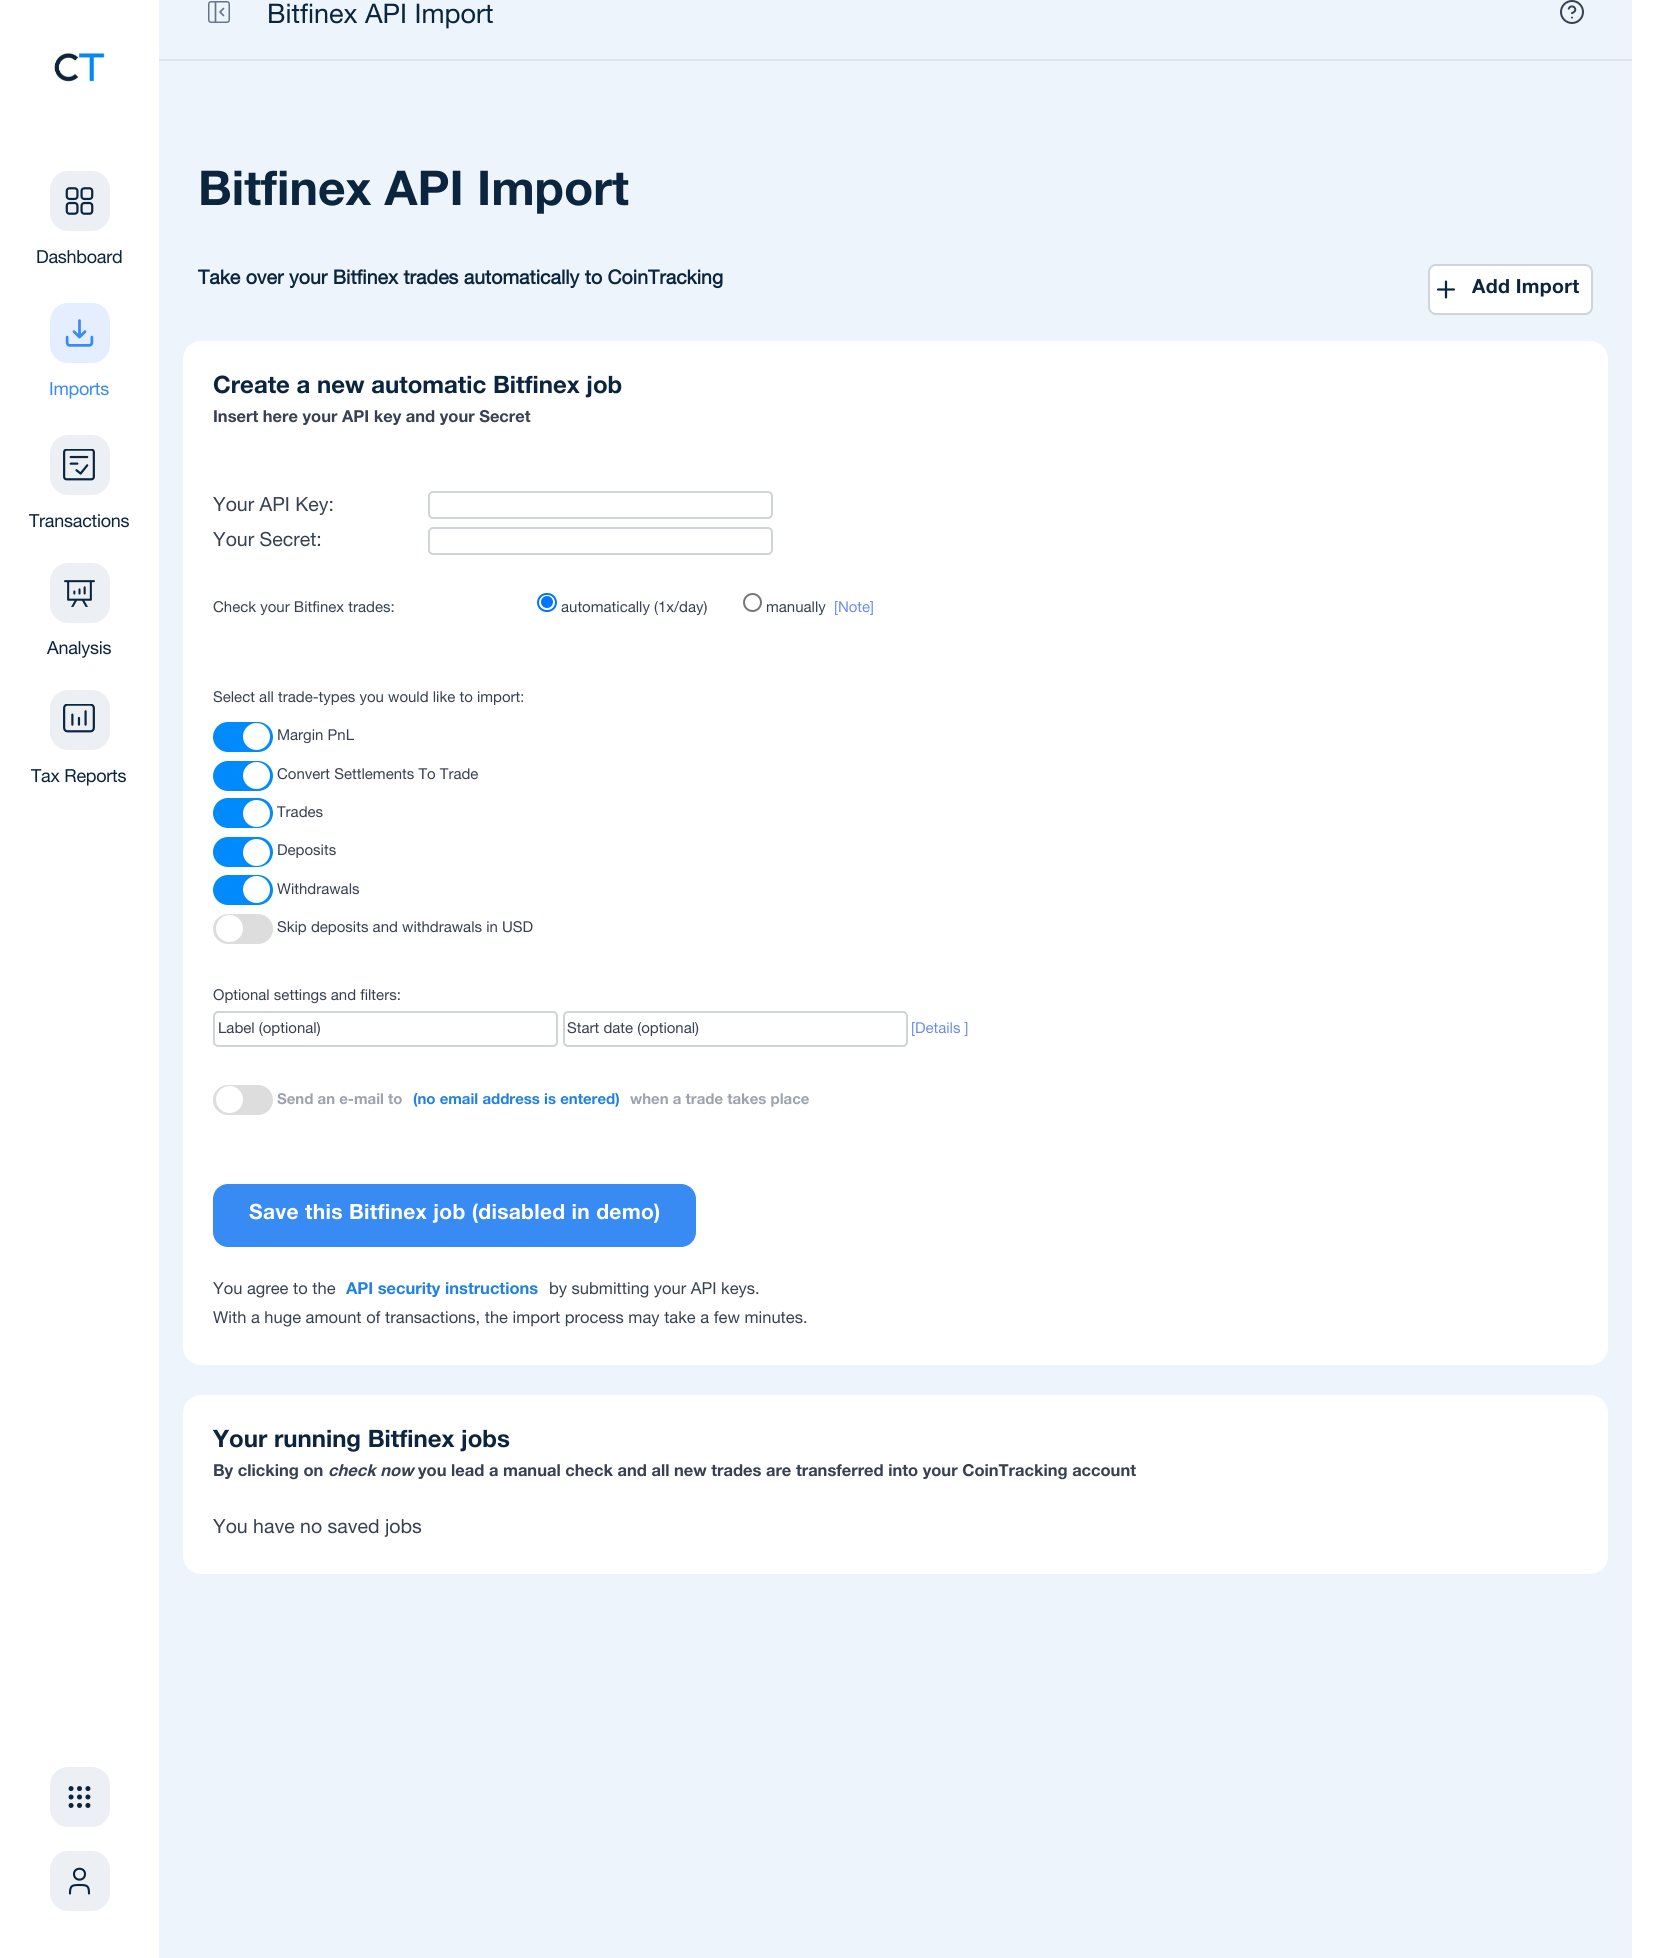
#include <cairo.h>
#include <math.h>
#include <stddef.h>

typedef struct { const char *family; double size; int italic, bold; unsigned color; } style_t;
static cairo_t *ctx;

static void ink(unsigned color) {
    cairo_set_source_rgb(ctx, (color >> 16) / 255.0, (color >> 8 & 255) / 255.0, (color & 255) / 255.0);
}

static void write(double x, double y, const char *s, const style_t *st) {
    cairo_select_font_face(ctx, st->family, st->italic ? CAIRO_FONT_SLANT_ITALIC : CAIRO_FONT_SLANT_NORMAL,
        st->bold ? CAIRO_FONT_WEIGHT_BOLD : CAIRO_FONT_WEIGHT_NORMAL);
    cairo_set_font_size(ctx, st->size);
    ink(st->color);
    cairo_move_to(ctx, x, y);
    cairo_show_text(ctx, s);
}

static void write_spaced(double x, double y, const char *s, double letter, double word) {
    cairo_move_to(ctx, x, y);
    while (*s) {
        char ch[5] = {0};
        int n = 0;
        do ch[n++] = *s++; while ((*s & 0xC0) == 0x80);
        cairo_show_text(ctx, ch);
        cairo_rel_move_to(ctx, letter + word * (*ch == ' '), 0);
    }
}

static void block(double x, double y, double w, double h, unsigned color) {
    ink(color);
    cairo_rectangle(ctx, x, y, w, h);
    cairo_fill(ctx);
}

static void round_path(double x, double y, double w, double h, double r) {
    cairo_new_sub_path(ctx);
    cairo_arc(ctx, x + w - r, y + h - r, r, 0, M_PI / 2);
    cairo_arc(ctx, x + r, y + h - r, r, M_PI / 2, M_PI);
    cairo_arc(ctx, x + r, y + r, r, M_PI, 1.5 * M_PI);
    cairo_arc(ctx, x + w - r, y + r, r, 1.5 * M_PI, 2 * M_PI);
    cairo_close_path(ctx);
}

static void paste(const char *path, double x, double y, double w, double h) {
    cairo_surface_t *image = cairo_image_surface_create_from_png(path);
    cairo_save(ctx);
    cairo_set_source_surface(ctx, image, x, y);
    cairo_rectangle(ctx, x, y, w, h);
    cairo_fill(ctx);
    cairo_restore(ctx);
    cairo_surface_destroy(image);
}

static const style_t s1 = {"Helvetica Neue", 27, 0, 0, 0x0b253e};
static const style_t s2 = {"Helvetica Neue", 48, 0, 1, 0x0b253e};
static const style_t s3 = {"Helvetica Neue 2", 19.5, 0, 1, 0x0b253e};
static const style_t s4 = {"Helvetica Neue", 24, 0, 1, 0x0b253e};
static const style_t s5 = {"Helvetica Neue", 16.5, 0, 1, 0x374151};
static const style_t s6 = {"Helvetica Neue", 19.5, 0, 0, 0x374151};
static const style_t s7 = {"Helvetica Neue", 15, 0, 0, 0x374151};
static const style_t s8 = {"Helvetica Neue", 15, 0, 0, 0x6c8ce9};
static const style_t s9 = {"Helvetica Neue", 15, 0, 1, 0x9ca3af};
static const style_t s10 = {"Helvetica Neue", 15, 0, 1, 0x2082de};
static const style_t s11 = {"Helvetica Neue", 16.5, 0, 0, 0x374151};
static const style_t s12 = {"Helvetica Neue", 16.5, 0, 1, 0x2082de};
static const style_t s13 = {"Helvetica Neue", 16.5, 1, 1, 0x374151};

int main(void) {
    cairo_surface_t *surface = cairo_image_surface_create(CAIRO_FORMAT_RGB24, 1656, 1958);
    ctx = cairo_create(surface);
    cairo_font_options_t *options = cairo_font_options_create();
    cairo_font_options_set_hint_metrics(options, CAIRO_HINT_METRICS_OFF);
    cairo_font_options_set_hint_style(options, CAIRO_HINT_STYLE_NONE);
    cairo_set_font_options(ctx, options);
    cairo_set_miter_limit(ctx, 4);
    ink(0xffffff);
    cairo_paint(ctx);
    paste("pic1.png", 54, 53, 51, 29);
    ink(0xecf0f5);
    round_path(50, 171, 60, 60, 18);
    cairo_fill(ctx);
    paste("pic2.png", 65, 187, 29, 28);
    cairo_select_font_face(ctx, "Helvetica Neue", CAIRO_FONT_SLANT_NORMAL, CAIRO_FONT_WEIGHT_NORMAL);
    cairo_set_font_size(ctx, 18);
    ink(0x0b253e);
    write_spaced(36, 263, "Dashboard", -0.25, 0);
    ink(0xe4eeff);
    round_path(50, 303, 60, 60, 18);
    cairo_fill(ctx);
    paste("pic3.png", 65, 319, 29, 28);
    ink(0x388bf3);
    write_spaced(49, 395, "Imports", -0.25, 0);
    ink(0xecf0f5);
    round_path(50, 435, 60, 60, 18);
    cairo_fill(ctx);
    paste("pic4.png", 63, 449, 32, 32);
    ink(0x0b253e);
    write_spaced(29, 527, "Transactions", -0.25, 0);
    ink(0xecf0f5);
    round_path(50, 563, 60, 60, 18);
    cairo_fill(ctx);
    paste("pic5.png", 64, 580, 31, 27);
    ink(0x0b253e);
    write_spaced(47, 654, "Analysis", -0.25, 0);
    ink(0xecf0f5);
    round_path(50, 690, 60, 60, 18);
    cairo_fill(ctx);
    paste("pic6.png", 63, 704, 32, 29);
    ink(0x0b253e);
    write_spaced(31, 782, "Tax Reports", -0.25, 0);
    ink(0xecf0f5);
    round_path(50, 1767, 60, 60, 18);
    cairo_fill(ctx);
    paste("pic7.png", 68, 1786, 23, 22);
    round_path(50, 1851, 60, 60, 18);
    cairo_fill(ctx);
    cairo_new_path(ctx);
    cairo_move_to(ctx, 89, 1893.5);
    cairo_curve_to(ctx, 89, 1885.5, 87, 1885, 79.5, 1885);
    cairo_curve_to(ctx, 72, 1885, 70, 1885.5, 70, 1893.5);
    cairo_move_to(ctx, 85, 1874);
    cairo_curve_to(ctx, 85, 1881.5, 74, 1881.5, 74, 1874);
    cairo_curve_to(ctx, 74, 1867, 85, 1867, 85, 1874);
    ink(0x0b253e);
    cairo_set_line_width(ctx, 2.1);
    cairo_set_line_cap(ctx, CAIRO_LINE_CAP_ROUND);
    cairo_set_line_join(ctx, CAIRO_LINE_JOIN_ROUND);
    cairo_stroke(ctx);
    block(159, 0, 1473, 1958, 0xedf4fb);
    block(159, 59, 1473, 2, 0xdfe5ec);
    round_path(208.75, 1.75, 20.5, 20.5, 2.25);
    ink(0x64748b);
    cairo_set_line_width(ctx, 1.5);
    cairo_set_line_cap(ctx, CAIRO_LINE_CAP_BUTT);
    cairo_set_line_join(ctx, CAIRO_LINE_JOIN_MITER);
    cairo_stroke(ctx);
    cairo_new_path(ctx);
    cairo_move_to(ctx, 215.5, 2);
    cairo_line_to(ctx, 215.5, 22);
    cairo_move_to(ctx, 223.5, 15.5);
    cairo_line_to(ctx, 220, 12);
    cairo_line_to(ctx, 223.5, 8.5);
    cairo_set_line_width(ctx, 1.7);
    cairo_set_line_cap(ctx, CAIRO_LINE_CAP_ROUND);
    cairo_set_line_join(ctx, CAIRO_LINE_JOIN_ROUND);
    cairo_stroke(ctx);
    write(267, 23, "Bitfinex API Import", &s1);
    paste("pic8.png", 1560, 0, 24, 24);
    write(198, 205, "Bitfinex API Import", &s2);
    write(198, 284, "Take over your Bitfinex trades automatically to CoinTracking", &s3);
    ink(0xffffff);
    round_path(1429, 265, 163, 49, 7);
    cairo_fill_preserve(ctx);
    ink(0xcfd4da);
    cairo_set_line_width(ctx, 2);
    cairo_set_line_cap(ctx, CAIRO_LINE_CAP_BUTT);
    cairo_set_line_join(ctx, CAIRO_LINE_JOIN_MITER);
    cairo_stroke(ctx);
    paste("pic9.png", 1437, 280, 18, 19);
    cairo_select_font_face(ctx, "Helvetica Neue", CAIRO_FONT_SLANT_NORMAL, CAIRO_FONT_WEIGHT_BOLD);
    ink(0x0b253e);
    write_spaced(1472, 293, "Add Import", 0.3, 0);
    ink(0xffffff);
    round_path(183, 341, 1425, 1024, 18);
    cairo_fill(ctx);
    write(213, 393, "Create a new automatic Bitfinex job", &s4);
    write(213, 422, "Insert here your API key and your Secret", &s5);
    write(213, 511, "Your API Key:", &s6);
    round_path(429, 492, 343, 26, 4);
    ink(0xcfd4da);
    cairo_stroke(ctx);
    write(213, 546, "Your Secret:", &s6);
    round_path(429, 528, 343, 26, 4);
    ink(0xcfd4da);
    cairo_stroke(ctx);
    write(213, 612, "Check your Bitfinex trades:", &s7);
    round_path(538, 594, 18, 17, 8.5);
    ink(0x0075ff);
    cairo_stroke(ctx);
    cairo_arc(ctx, 547, 602, 6, 0, 2 * M_PI);
    cairo_fill(ctx);
    write(561, 612, "automatically (1x/day)", &s7);
    cairo_new_path(ctx);
    cairo_arc(ctx, 752.5, 602.5, 8.5, 0, 2 * M_PI);
    ink(0x767676);
    cairo_stroke(ctx);
    write(766, 612, "manually", &s7);
    write(834, 612, "[Note]", &s8);
    write(213, 702, "Select all trade-types you would like to import:", &s7);
    ink(0x008afb);
    round_path(213, 722, 60, 30, 15);
    cairo_fill(ctx);
    ink(0xffffff);
    cairo_arc(ctx, 256.5, 736.5, 13.5, 0, 2 * M_PI);
    cairo_fill(ctx);
    write(277, 740, "Margin PnL", &s7);
    ink(0x008afb);
    round_path(213, 761, 60, 30, 15);
    cairo_fill(ctx);
    ink(0xffffff);
    cairo_arc(ctx, 256.5, 775.5, 13.5, 0, 2 * M_PI);
    cairo_fill(ctx);
    write(277, 779, "Convert Settlements To Trade", &s7);
    ink(0x008afb);
    round_path(213, 798, 60, 30, 15);
    cairo_fill(ctx);
    ink(0xffffff);
    cairo_arc(ctx, 256.5, 813.5, 13.5, 0, 2 * M_PI);
    cairo_fill(ctx);
    write(277, 817, "Trades", &s7);
    ink(0x008afb);
    round_path(213, 837, 60, 30, 15);
    cairo_fill(ctx);
    ink(0xffffff);
    cairo_arc(ctx, 256.5, 852.5, 13.5, 0, 2 * M_PI);
    cairo_fill(ctx);
    write(277, 855, "Deposits", &s7);
    ink(0x008afb);
    round_path(213, 875, 60, 30, 15);
    cairo_fill(ctx);
    ink(0xffffff);
    cairo_arc(ctx, 256.5, 889.5, 13.5, 0, 2 * M_PI);
    cairo_fill(ctx);
    write(277, 894, "Withdrawals", &s7);
    ink(0xdddddd);
    round_path(213, 914, 60, 30, 15);
    cairo_fill(ctx);
    ink(0xffffff);
    cairo_arc(ctx, 229.5, 928.5, 13.5, 0, 2 * M_PI);
    cairo_fill(ctx);
    write(277, 932, "Skip deposits and withdrawals in USD", &s7);
    write(213, 1000, "Optional settings and filters:", &s7);
    round_path(214, 1012, 343, 34, 4);
    ink(0xcfd4da);
    cairo_stroke(ctx);
    write(218, 1033, "Label (optional)", &s7);
    round_path(564, 1012, 343, 34, 4);
    ink(0xcfd4da);
    cairo_stroke(ctx);
    write(567, 1033, "Start date (optional)", &s7);
    write(911, 1033, "[Details ]", &s8);
    ink(0xdddddd);
    round_path(213, 1085, 60, 30, 15);
    cairo_fill(ctx);
    ink(0xffffff);
    cairo_arc(ctx, 229.5, 1099.5, 13.5, 0, 2 * M_PI);
    cairo_fill(ctx);
    write(277, 1104, "Send an e-mail to", &s9);
    write(413, 1104, "(no email address is entered)", &s10);
    write(630, 1104, "when a trade takes place", &s9);
    ink(0x388bf3);
    round_path(213, 1184, 483, 63, 15);
    cairo_fill(ctx);
    cairo_set_font_size(ctx, 21);
    ink(0xffffff);
    write_spaced(249, 1219, "Save this Bitfinex job (disabled in demo)", 0.3, 0);
    write(213, 1294, "You agree to the", &s11);
    write(346, 1294, "API security instructions", &s12);
    write(549, 1294, "by submitting your API keys.", &s11);
    write(213, 1323, "With a huge amount of transactions, the import process may take a few minutes.", &s11);
    ink(0xffffff);
    round_path(183, 1395, 1425, 179, 18);
    cairo_fill(ctx);
    write(213, 1447, "Your running Bitfinex jobs", &s4);
    write(213, 1476, "By clicking on", &s5);
    write(328, 1476, "check now", &s13);
    write(418, 1476, "you lead a manual check and all new trades are transferred into your CoinTracking account", &s5);
    write(213, 1533, "You have no saved jobs", &s6);
    cairo_surface_write_to_png(surface, "screenshot.png");
    cairo_font_options_destroy(options);
    cairo_destroy(ctx);
    cairo_surface_destroy(surface);
    return 0;
}
